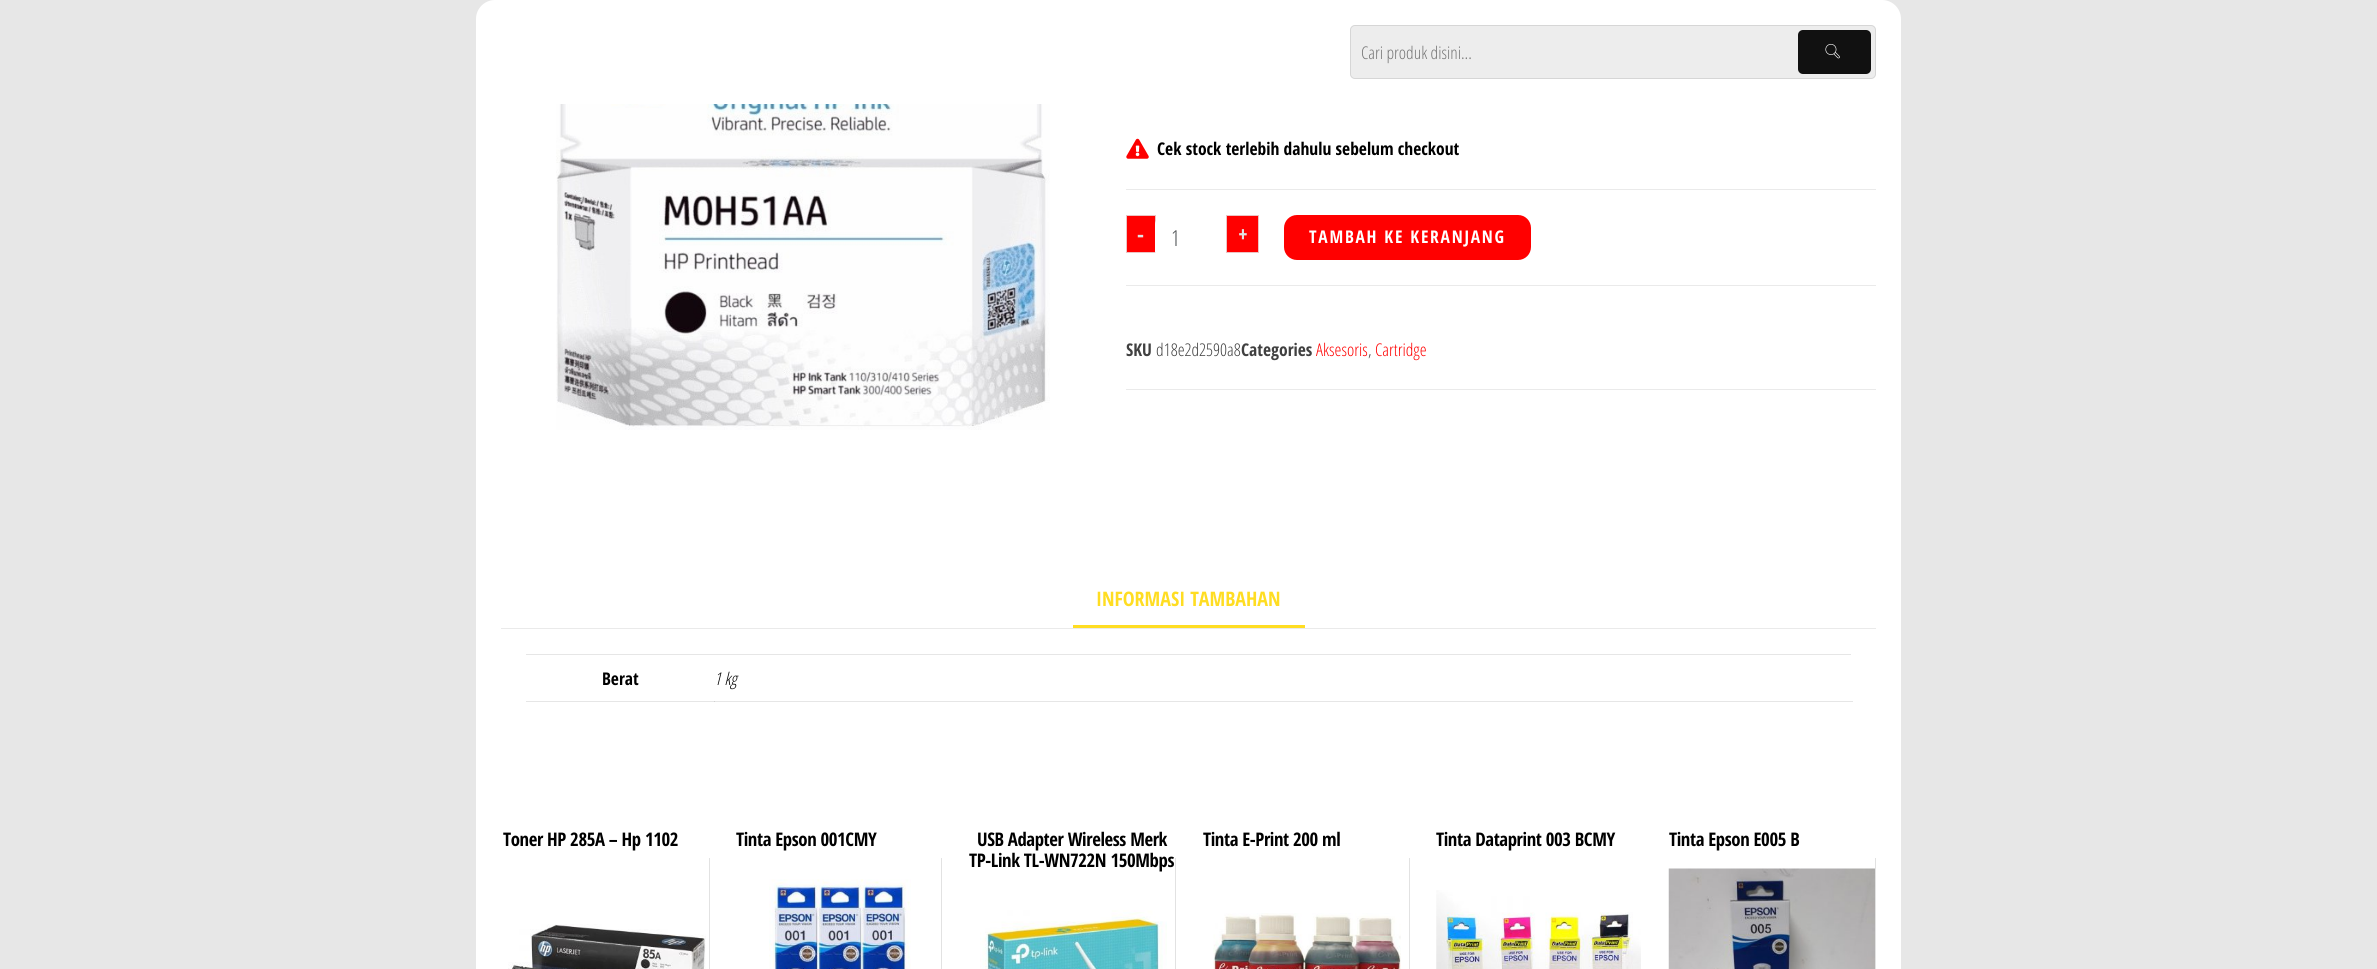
#include <cairo.h>
#include <math.h>
#include <stddef.h>

typedef struct { const char *family; double size; int italic, bold; unsigned color; } style_t;
static cairo_t *ctx;

static void ink(unsigned color) {
    cairo_set_source_rgb(ctx, (color >> 16) / 255.0, (color >> 8 & 255) / 255.0, (color & 255) / 255.0);
}

static void write(double x, double y, const char *s, const style_t *st) {
    cairo_select_font_face(ctx, st->family, st->italic ? CAIRO_FONT_SLANT_ITALIC : CAIRO_FONT_SLANT_NORMAL,
        st->bold ? CAIRO_FONT_WEIGHT_BOLD : CAIRO_FONT_WEIGHT_NORMAL);
    cairo_set_font_size(ctx, st->size);
    ink(st->color);
    cairo_move_to(ctx, x, y);
    cairo_show_text(ctx, s);
}

static void write_spaced(double x, double y, const char *s, double letter, double word) {
    cairo_move_to(ctx, x, y);
    while (*s) {
        char ch[5] = {0};
        int n = 0;
        do ch[n++] = *s++; while ((*s & 0xC0) == 0x80);
        cairo_show_text(ctx, ch);
        cairo_rel_move_to(ctx, letter + word * (*ch == ' '), 0);
    }
}

static void block(double x, double y, double w, double h, unsigned color) {
    ink(color);
    cairo_rectangle(ctx, x, y, w, h);
    cairo_fill(ctx);
}

static void round_path(double x, double y, double w, double h, double r) {
    cairo_new_sub_path(ctx);
    cairo_arc(ctx, x + w - r, y + h - r, r, 0, M_PI / 2);
    cairo_arc(ctx, x + r, y + h - r, r, M_PI / 2, M_PI);
    cairo_arc(ctx, x + r, y + r, r, M_PI, 1.5 * M_PI);
    cairo_arc(ctx, x + w - r, y + r, r, 1.5 * M_PI, 2 * M_PI);
    cairo_close_path(ctx);
}

static void paste(const char *path, double x, double y, double w, double h) {
    cairo_surface_t *image = cairo_image_surface_create_from_png(path);
    cairo_save(ctx);
    cairo_set_source_surface(ctx, image, x, y);
    cairo_rectangle(ctx, x, y, w, h);
    cairo_fill(ctx);
    cairo_restore(ctx);
    cairo_surface_destroy(image);
}

static const style_t s1 = {"Open Sans Condensed Light", 17.5, 0, 0, 0x757575};
static const style_t s2 = {"Open Sans Condensed", 17.5, 0, 1, 0x000000};
static const style_t s3 = {"Open Sans Condensed", 22, 0, 1, 0xe2e2e2};
static const style_t s4 = {"Open Sans Condensed Light", 22, 0, 0, 0x464a4c};
static const style_t s5 = {"Open Sans Condensed", 17.5, 0, 1, 0x404040};
static const style_t s6 = {"Open Sans Condensed Light", 17.5, 0, 0, 0x404040};
static const style_t s7 = {"Open Sans Condensed Light", 17.5, 0, 0, 0xff0000};
static const style_t s8 = {"Open Sans Condensed", 20, 0, 1, 0xffdd22};
static const style_t s9 = {"Open Sans Condensed Light", 17.5, 1, 0, 0x000000};

int main(void) {
    cairo_surface_t *surface = cairo_image_surface_create(CAIRO_FORMAT_RGB24, 2377, 969);
    ctx = cairo_create(surface);
    cairo_font_options_t *options = cairo_font_options_create();
    cairo_font_options_set_hint_metrics(options, CAIRO_HINT_METRICS_OFF);
    cairo_font_options_set_hint_style(options, CAIRO_HINT_STYLE_NONE);
    cairo_set_font_options(ctx, options);
    cairo_set_miter_limit(ctx, 4);
    ink(0xe7e7e7);
    cairo_paint(ctx);
    ink(0xffffff);
    cairo_new_path(ctx);
    cairo_move_to(ctx, 495, 0);
    cairo_line_to(ctx, 1882, 0);
    cairo_curve_to(ctx, 1892.5, 0, 1901, 8.5, 1901, 19);
    cairo_line_to(ctx, 1901, 104);
    cairo_line_to(ctx, 476, 104);
    cairo_line_to(ctx, 476, 19);
    cairo_curve_to(ctx, 476, 8.5, 484.5, 0, 495, 0);
    cairo_close_path(ctx);
    cairo_fill(ctx);
    ink(0xededed);
    round_path(1350.5, 25.5, 525, 53, 4.5);
    cairo_fill_preserve(ctx);
    ink(0xd6d6d6);
    cairo_set_line_width(ctx, 1);
    cairo_stroke(ctx);
    write(1361, 59, "Cari produk disini...", &s1);
    ink(0x111111);
    round_path(1798, 30, 73, 44, 5);
    cairo_fill(ctx);
    paste("pic1.png", 1825, 43, 15, 16);
    block(476, 104, 1425, 865, 0xffffff);
    block(526, 701, 1327, 1, 0xe6e6e6);
    paste("pic2.png", 556, 104, 494, 326);
    paste("pic3.png", 1126, 138, 23, 21);
    write(1157, 155, "Cek stock terlebih dahulu sebelum checkout", &s2);
    block(1126, 189, 750, 1, 0xeaeaea);
    block(1126, 285, 750, 1, 0xeaeaea);
    ink(0xff0000);
    cairo_rectangle(ctx, 1126.5, 215.5, 29, 37);
    cairo_fill_preserve(ctx);
    ink(0xecc3c3);
    cairo_stroke(ctx);
    write(1137, 242, "-", &s3);
    ink(0xffffff);
    round_path(1155.5, 215.5, 59, 44, 9.5);
    cairo_fill_preserve(ctx);
    cairo_stroke(ctx);
    write(1171, 246, "1", &s4);
    ink(0xff0000);
    cairo_rectangle(ctx, 1226.5, 215.5, 32, 37);
    cairo_fill_preserve(ctx);
    ink(0xecc3c3);
    cairo_stroke(ctx);
    write(1238, 242, "+", &s3);
    ink(0xff0000);
    round_path(1284, 215, 247, 45, 13);
    cairo_fill(ctx);
    cairo_set_font_size(ctx, 17.5);
    ink(0xffffff);
    write_spaced(1309, 243, "TAMBAH KE KERANJANG", 1.75, 0);
    block(1126, 389, 750, 1, 0xeaeaea);
    write(1126, 356, "SKU", &s5);
    write(1156, 356, "d18e2d2590a8", &s6);
    write(1241, 356, "Categories", &s5);
    write(1316, 356, "Aksesoris", &s7);
    write(1368, 356, ",", &s6);
    write(1375, 356, "Cartridge", &s7);
    block(501, 628, 1375, 1, 0xeaeaea);
    block(1073, 625, 232, 3, 0xffdd22);
    write(1096, 606, "INFORMASI TAMBAHAN", &s8);
    block(526, 654, 1325, 1, 0xe6e6e6);
    write(602, 685, "Berat", &s2);
    block(714, 701, 1, 1, 0xcfcfcf);
    write(714, 685, "1 kg", &s9);
    cairo_select_font_face(ctx, "Open Sans Condensed", CAIRO_FONT_SLANT_NORMAL, CAIRO_FONT_WEIGHT_BOLD);
    cairo_set_font_size(ctx, 18.75);
    write_spaced(503, 846, "Toner HP 285A – Hp 1102", -0.4, 0);
    paste("pic4.png", 508, 924, 198, 45);
    block(709, 858, 1, 111, 0xe2e2e2);
    ink(0x000000);
    write_spaced(736, 846, "Tinta Epson 001CMY", -0.4, 0);
    paste("pic5.png", 769, 879, 142, 90);
    block(941, 858, 1, 111, 0xe2e2e2);
    ink(0x000000);
    write_spaced(977, 846, "USB Adapter Wireless Merk", -0.4, 0);
    write_spaced(969, 867, "TP-Link TL-WN722N 150Mbps", -0.4, 0);
    paste("pic6.png", 980, 910, 187, 59);
    block(1175, 858, 1, 111, 0xe2e2e2);
    ink(0x000000);
    write_spaced(1203, 846, "Tinta E-Print 200 ml", -0.4, 0);
    paste("pic7.png", 1213, 913, 188, 56);
    block(1409, 858, 1, 111, 0xe2e2e2);
    ink(0x000000);
    write_spaced(1436, 846, "Tinta Dataprint 003 BCMY", -0.4, 0);
    paste("pic8.png", 1436, 890, 205, 79);
    write_spaced(1669, 846, "Tinta Epson E005 B", -0.4, 0);
    paste("pic9.png", 1668, 868, 207, 101);
    block(1875, 858, 1, 111, 0xe2e2e2);
    cairo_surface_write_to_png(surface, "screenshot.png");
    cairo_font_options_destroy(options);
    cairo_destroy(ctx);
    cairo_surface_destroy(surface);
    return 0;
}
